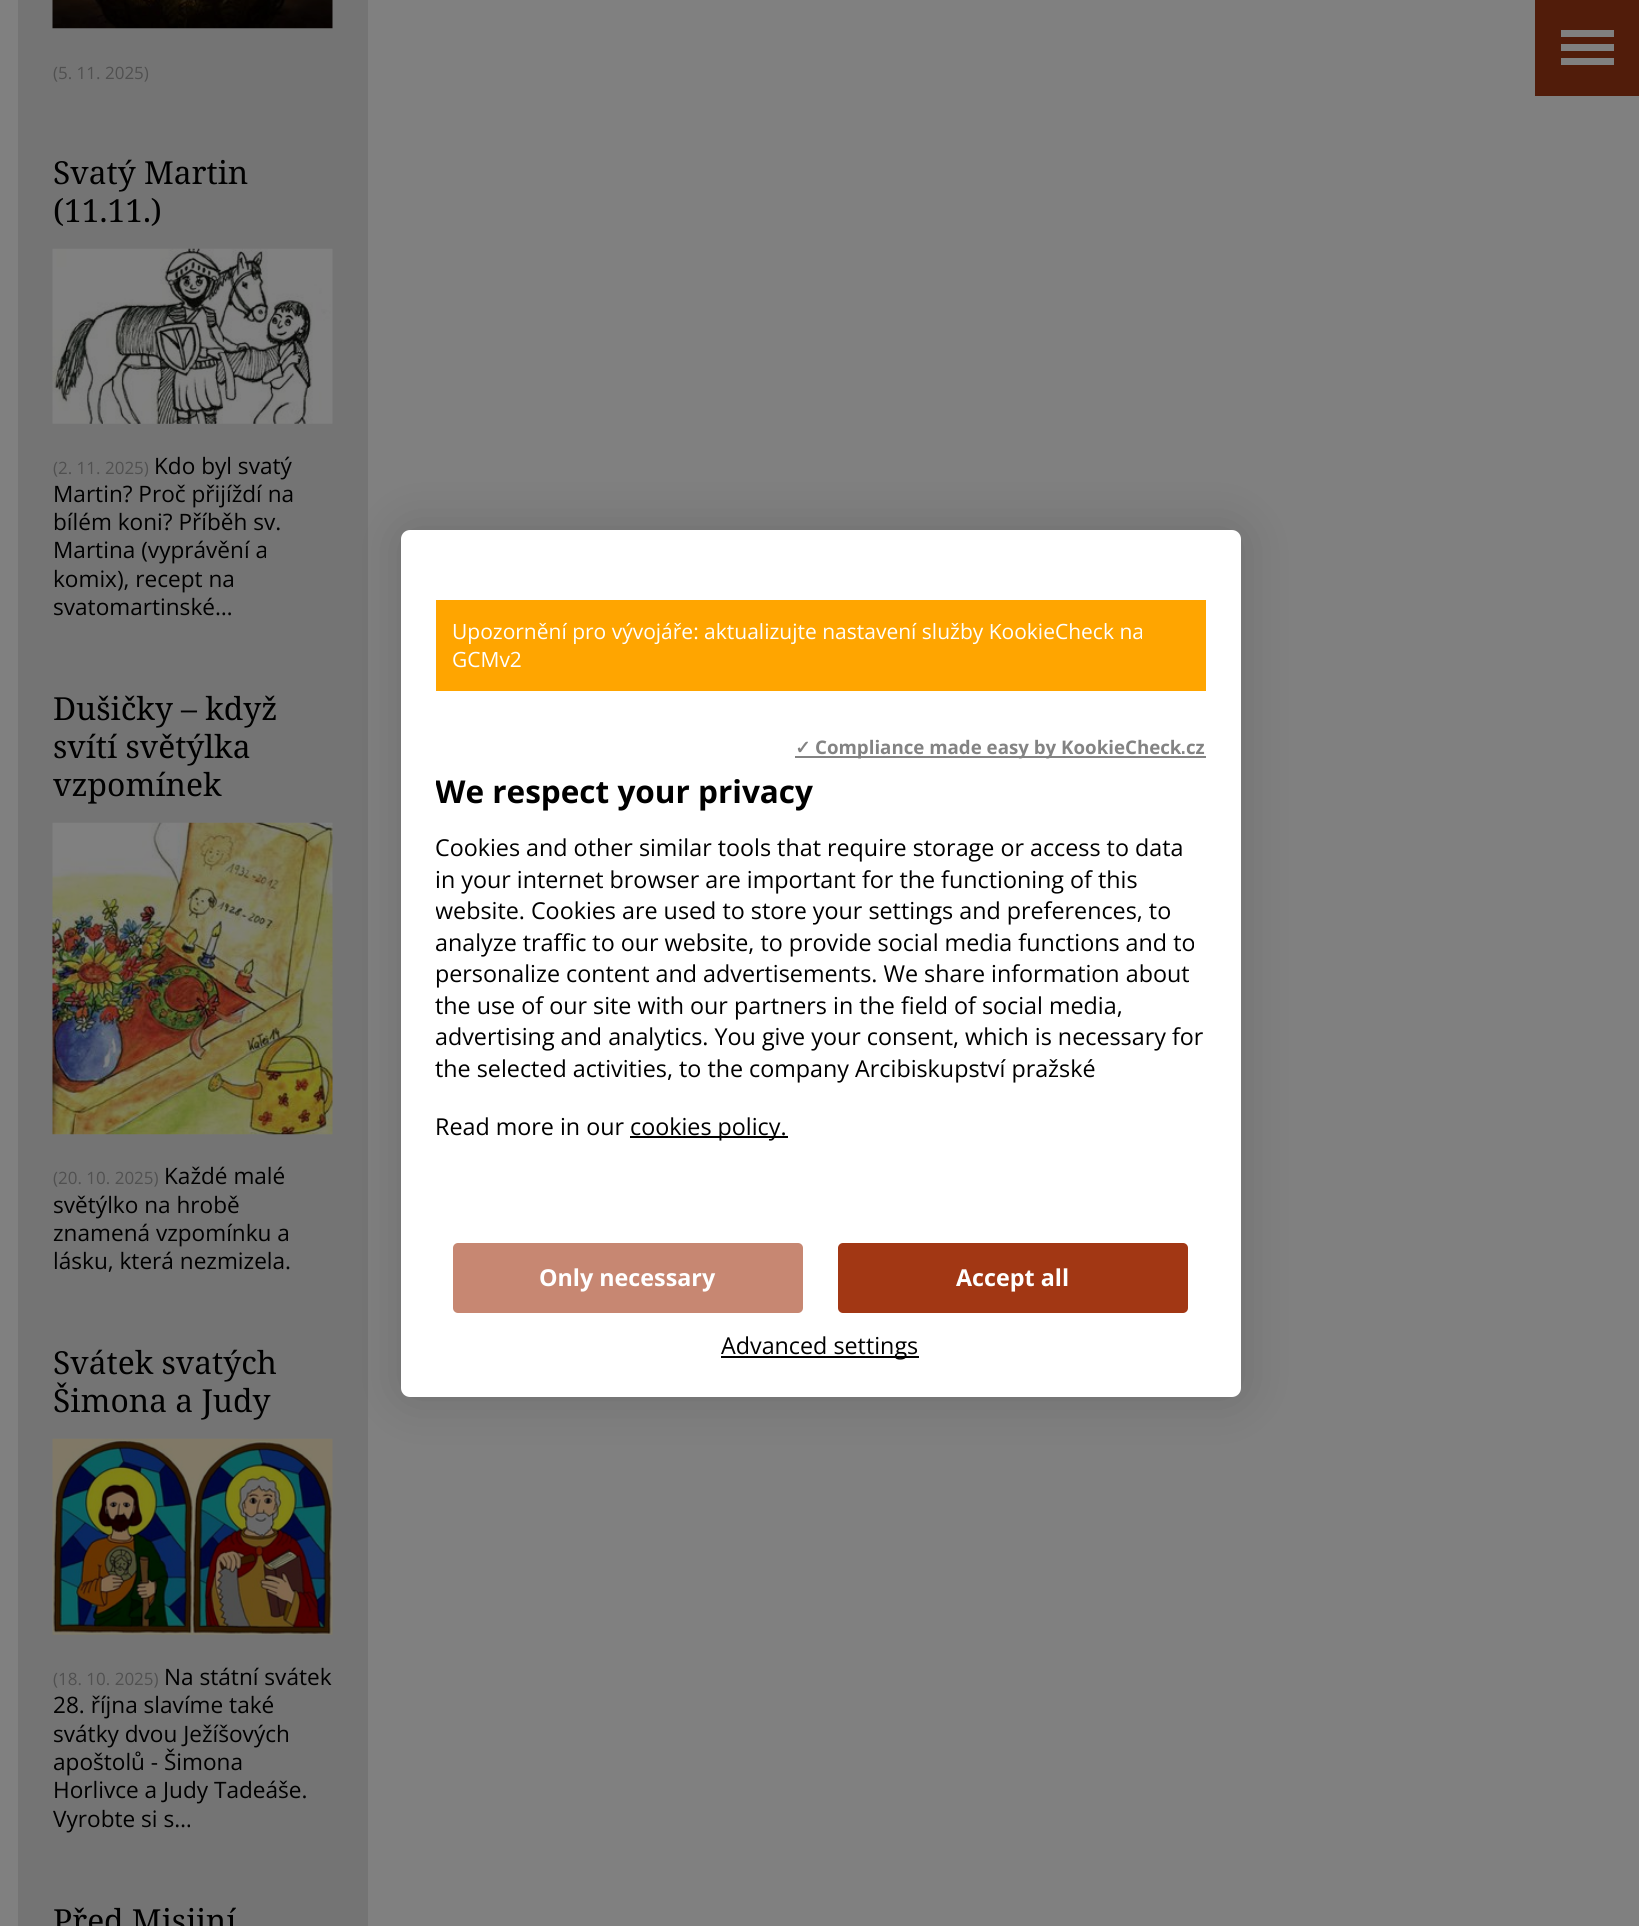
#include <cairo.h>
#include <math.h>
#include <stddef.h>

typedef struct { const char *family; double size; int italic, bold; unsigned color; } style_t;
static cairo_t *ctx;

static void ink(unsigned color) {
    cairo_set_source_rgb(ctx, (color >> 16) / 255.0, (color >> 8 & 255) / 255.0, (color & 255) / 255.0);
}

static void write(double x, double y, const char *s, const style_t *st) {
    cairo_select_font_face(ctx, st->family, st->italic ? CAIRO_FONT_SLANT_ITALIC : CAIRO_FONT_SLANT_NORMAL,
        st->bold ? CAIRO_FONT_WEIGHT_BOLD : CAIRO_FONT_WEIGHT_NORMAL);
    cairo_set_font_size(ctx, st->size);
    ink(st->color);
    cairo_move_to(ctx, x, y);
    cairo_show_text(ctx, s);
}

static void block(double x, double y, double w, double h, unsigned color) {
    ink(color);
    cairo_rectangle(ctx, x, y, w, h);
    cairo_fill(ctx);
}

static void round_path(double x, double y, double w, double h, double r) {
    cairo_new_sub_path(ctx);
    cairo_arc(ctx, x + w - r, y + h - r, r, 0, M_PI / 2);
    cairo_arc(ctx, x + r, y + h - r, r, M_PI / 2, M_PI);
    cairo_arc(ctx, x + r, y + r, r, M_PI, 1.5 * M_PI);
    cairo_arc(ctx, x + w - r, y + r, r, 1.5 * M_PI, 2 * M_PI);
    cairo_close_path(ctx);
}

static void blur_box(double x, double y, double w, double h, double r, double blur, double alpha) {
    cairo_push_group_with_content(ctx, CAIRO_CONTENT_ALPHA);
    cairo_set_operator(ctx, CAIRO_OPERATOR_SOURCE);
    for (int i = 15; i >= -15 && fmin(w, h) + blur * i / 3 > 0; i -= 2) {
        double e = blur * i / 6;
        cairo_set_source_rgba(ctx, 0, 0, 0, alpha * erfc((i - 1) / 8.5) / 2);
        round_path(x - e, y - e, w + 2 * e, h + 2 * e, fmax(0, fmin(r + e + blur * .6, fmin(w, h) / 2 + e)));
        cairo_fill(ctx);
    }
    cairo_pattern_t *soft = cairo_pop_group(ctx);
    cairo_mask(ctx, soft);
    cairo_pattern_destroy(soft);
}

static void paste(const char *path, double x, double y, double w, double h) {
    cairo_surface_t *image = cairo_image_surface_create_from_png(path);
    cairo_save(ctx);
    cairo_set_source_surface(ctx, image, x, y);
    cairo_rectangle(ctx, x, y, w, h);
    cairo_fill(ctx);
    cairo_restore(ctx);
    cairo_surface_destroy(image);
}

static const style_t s1 = {"Open Sans", 17, 0, 0, 0x505050};
static const style_t s2 = {"Noto Serif", 31.75, 0, 0, 0x000000};
static const style_t s3 = {"Open Sans", 22.6, 0, 0, 0x000000};
static const style_t s4 = {"Open Sans", 21, 0, 0, 0xffffff};
static const style_t s5 = {"DejaVu Sans", 18.7, 0, 1, 0x838383};
static const style_t s6 = {"Open Sans", 18.7, 0, 1, 0x838383};
static const style_t s7 = {"Open Sans", 31.5, 0, 1, 0x000000};
static const style_t s8 = {"Open Sans", 23.3, 0, 0, 0x000000};
static const style_t s9 = {"Open Sans", 23.3, 0, 1, 0xffffff};

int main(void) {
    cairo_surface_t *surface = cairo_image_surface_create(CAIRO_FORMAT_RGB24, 1639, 1926);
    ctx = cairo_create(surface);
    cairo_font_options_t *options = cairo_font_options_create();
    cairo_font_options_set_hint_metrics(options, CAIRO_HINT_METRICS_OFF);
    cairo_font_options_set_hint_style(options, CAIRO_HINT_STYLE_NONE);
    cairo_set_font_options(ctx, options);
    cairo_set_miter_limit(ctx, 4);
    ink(0x808080);
    cairo_paint(ctx);
    block(1535, 0, 104, 96, 0x511c0a);
    block(1561, 30, 53, 7, 0x808080);
    block(1561, 44, 53, 7, 0x808080);
    block(1561, 58, 53, 7, 0x808080);
    block(18, 0, 350, 1926, 0x747474);
    paste("pic1.png", 52, 0, 281, 29);
    write(53, 79, "(5. 11. 2025)", &s1);
    write(53, 184, "Svatý Martin", &s2);
    write(53, 222, "(11.11.)", &s2);
    paste("pic2.png", 52, 248, 281, 176);
    write(53, 474, "(2. 11. 2025)", &s1);
    write(154, 474, "Kdo byl svatý", &s3);
    write(53, 502, "Martin? Proč přijíždí na", &s3);
    write(53, 530, "bílém koni? Příběh sv.", &s3);
    write(53, 558, "Martina (vyprávění a", &s3);
    write(53, 587, "komix), recept na", &s3);
    write(53, 615, "svatomartinské…", &s3);
    write(53, 720, "Dušičky – když", &s2);
    write(53, 758, "svítí světýlka", &s2);
    write(53, 796, "vzpomínek", &s2);
    paste("pic3.png", 52, 822, 281, 313);
    write(53, 1184, "(20. 10. 2025)", &s1);
    write(164, 1184, "Každé malé", &s3);
    write(53, 1213, "světýlko na hrobě", &s3);
    write(53, 1241, "znamená vzpomínku a", &s3);
    write(53, 1269, "lásku, která nezmizela.", &s3);
    write(53, 1374, "Svátek svatých", &s2);
    write(53, 1412, "Šimona a Judy", &s2);
    paste("pic4.png", 52, 1438, 281, 197);
    write(53, 1685, "(18. 10. 2025)", &s1);
    write(164, 1685, "Na státní svátek", &s3);
    write(53, 1713, "28. října slavíme také", &s3);
    write(53, 1742, "svátky dvou Ježíšových", &s3);
    write(53, 1770, "apoštolů - Šimona", &s3);
    write(53, 1798, "Horlivce a Judy Tadeáše.", &s3);
    write(53, 1827, "Vyrobte si s…", &s3);
    write(53, 1932, "Před Misijní", &s2);
    ink(0x000000);
    blur_box(401, 530, 840, 867, 9, 26, 0.15);
    ink(0xffffff);
    round_path(401, 530, 840, 867, 9);
    cairo_fill(ctx);
    block(436, 600, 770, 91, 0xffa500);
    write(452, 639, "Upozornění pro vývojáře: aktualizujte nastavení služby KookieCheck na", &s4);
    write(452, 667, "GCMv2", &s4);
    write(795, 754, "✓", &s5);
    block(795, 756, 411, 2, 0x838383);
    write(815, 754, "Compliance made easy by KookieCheck", &s6);
    write(1180, 754, ".", &s5);
    write(1186, 754, "cz", &s6);
    cairo_save(ctx);
    cairo_rectangle(ctx, 436, 777, 805, 585);
    cairo_clip(ctx);
    write(435, 803, "We respect your privacy", &s7);
    cairo_restore(ctx);
    write(435, 856, "Cookies and other similar tools that require storage or access to data", &s8);
    write(435, 888, "in your internet browser are important for the functioning of this", &s8);
    cairo_save(ctx);
    cairo_rectangle(ctx, 436, 777, 805, 585);
    cairo_clip(ctx);
    write(435, 919, "website. Cookies are used to store your settings and preferences, to", &s8);
    cairo_restore(ctx);
    write(435, 951, "analyze traffic to our website, to provide social media functions and to", &s8);
    write(435, 982, "personalize content and advertisements. We share information about", &s8);
    write(435, 1014, "the use of our site with our partners in the field of social media,", &s8);
    write(435, 1045, "advertising and analytics. You give your consent, which is necessary for", &s8);
    write(435, 1077, "the selected activities, to the company Arcibiskupství pražské", &s8);
    write(435, 1135, "Read more in our", &s8);
    block(630, 1136, 158, 2, 0x000000);
    write(630, 1135, "cookies policy.", &s8);
    ink(0xc78772);
    round_path(453, 1243, 350, 70, 5);
    cairo_fill(ctx);
    write(539, 1286, "Only necessary", &s9);
    ink(0xa23714);
    round_path(838, 1243, 350, 70, 5);
    cairo_fill(ctx);
    write(956, 1286, "Accept all", &s9);
    block(721, 1356, 198, 2, 0x000000);
    write(721, 1354, "Advanced settings", &s8);
    cairo_surface_write_to_png(surface, "screenshot.png");
    cairo_font_options_destroy(options);
    cairo_destroy(ctx);
    cairo_surface_destroy(surface);
    return 0;
}
